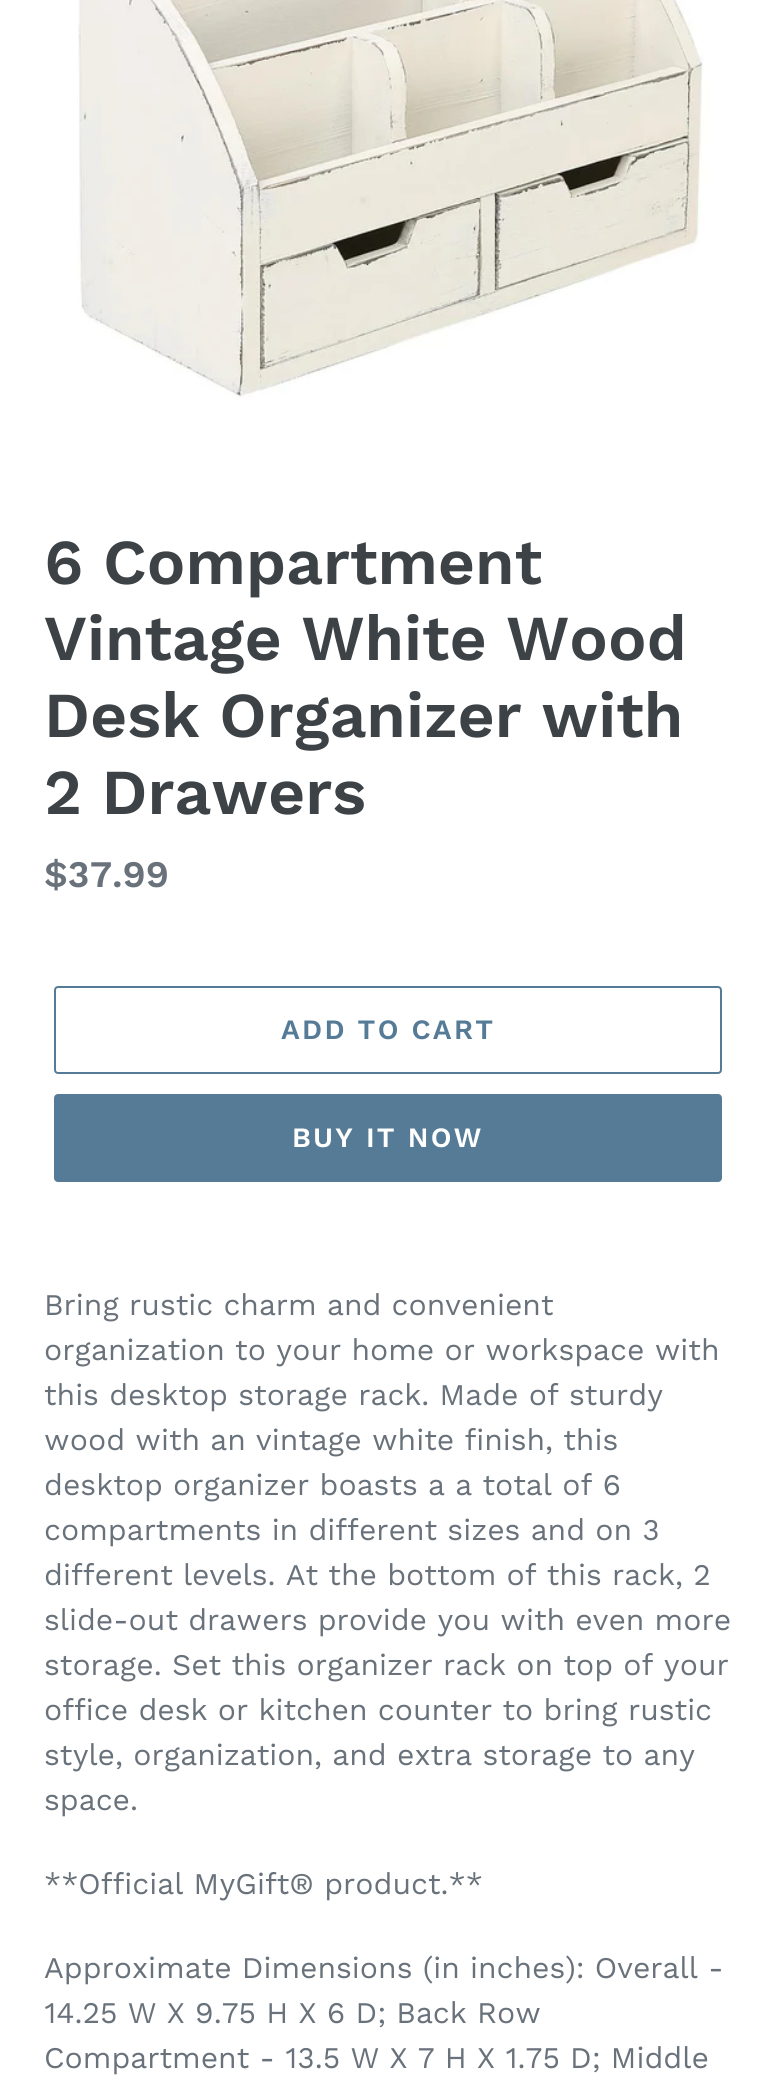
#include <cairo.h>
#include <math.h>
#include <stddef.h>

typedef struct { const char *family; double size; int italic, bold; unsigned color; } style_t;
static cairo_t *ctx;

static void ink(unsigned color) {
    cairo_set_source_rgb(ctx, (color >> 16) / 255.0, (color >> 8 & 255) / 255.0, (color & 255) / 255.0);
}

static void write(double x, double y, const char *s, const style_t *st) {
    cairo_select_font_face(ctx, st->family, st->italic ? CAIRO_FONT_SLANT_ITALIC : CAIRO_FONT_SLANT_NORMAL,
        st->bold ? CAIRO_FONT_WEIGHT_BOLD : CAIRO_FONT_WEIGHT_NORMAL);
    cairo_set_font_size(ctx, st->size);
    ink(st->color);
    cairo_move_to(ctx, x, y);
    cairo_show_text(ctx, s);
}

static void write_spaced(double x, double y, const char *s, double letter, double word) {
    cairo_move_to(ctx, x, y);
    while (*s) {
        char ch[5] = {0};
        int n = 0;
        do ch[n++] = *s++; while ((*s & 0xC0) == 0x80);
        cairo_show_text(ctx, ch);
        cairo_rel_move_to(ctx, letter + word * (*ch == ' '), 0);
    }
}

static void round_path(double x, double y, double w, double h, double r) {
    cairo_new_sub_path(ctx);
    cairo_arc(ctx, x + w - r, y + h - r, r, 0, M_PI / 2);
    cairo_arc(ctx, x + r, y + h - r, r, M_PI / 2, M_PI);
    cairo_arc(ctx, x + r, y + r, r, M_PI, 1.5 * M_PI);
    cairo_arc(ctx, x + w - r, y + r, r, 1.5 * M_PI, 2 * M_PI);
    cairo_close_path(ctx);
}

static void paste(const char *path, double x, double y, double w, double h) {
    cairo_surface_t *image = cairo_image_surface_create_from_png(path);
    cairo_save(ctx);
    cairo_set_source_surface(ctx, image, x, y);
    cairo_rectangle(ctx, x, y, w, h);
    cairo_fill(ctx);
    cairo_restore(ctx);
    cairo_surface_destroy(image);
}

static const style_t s1 = {"Work Sans SemiBold", 64, 0, 0, 0x3d4246};
static const style_t s2 = {"Work Sans SemiBold", 37.5, 0, 0, 0x69727b};
static const style_t s3 = {"Work Sans", 30, 0, 0, 0x69727b};

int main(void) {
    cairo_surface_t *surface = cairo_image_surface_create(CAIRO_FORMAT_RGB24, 776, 2083);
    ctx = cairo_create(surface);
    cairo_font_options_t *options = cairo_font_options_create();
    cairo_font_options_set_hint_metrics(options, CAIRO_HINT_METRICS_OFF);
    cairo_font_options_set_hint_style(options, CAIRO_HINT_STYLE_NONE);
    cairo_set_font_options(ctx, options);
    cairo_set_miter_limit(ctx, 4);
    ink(0xffffff);
    cairo_paint(ctx);
    paste("pic1.png", 77, 0, 633, 398);
    write(44, 584, "6 Compartment", &s1);
    write(44, 660, "Vintage White Wood", &s1);
    write(44, 737, "Desk Organizer with", &s1);
    write(44, 814, "2 Drawers", &s1);
    write(44, 887, "$37.99", &s2);
    round_path(55, 987, 666, 86, 3);
    ink(0x557b97);
    cairo_stroke(ctx);
    cairo_set_font_size(ctx, 28);
    write_spaced(281, 1039, "ADD TO CART", 2.25, 0);
    round_path(54, 1094, 668, 88, 4);
    cairo_fill(ctx);
    ink(0xffffff);
    write_spaced(292, 1147, "BUY IT NOW", 2.25, 0);
    write(44, 1315, "Bring rustic charm and convenient", &s3);
    write(44, 1360, "organization to your home or workspace with", &s3);
    write(44, 1405, "this desktop storage rack. Made of sturdy", &s3);
    write(44, 1450, "wood with an vintage white finish, this", &s3);
    write(44, 1495, "desktop organizer boasts a a total of 6", &s3);
    write(44, 1540, "compartments in different sizes and on 3", &s3);
    write(44, 1585, "different levels. At the bottom of this rack, 2", &s3);
    write(44, 1630, "slide-out drawers provide you with even more", &s3);
    write(44, 1675, "storage. Set this organizer rack on top of your", &s3);
    write(44, 1720, "office desk or kitchen counter to bring rustic", &s3);
    write(44, 1765, "style, organization, and extra storage to any", &s3);
    write(44, 1810, "space.", &s3);
    write(44, 1894, "**Official MyGift® product.**", &s3);
    write(44, 1978, "Approximate Dimensions (in inches): Overall -", &s3);
    write(44, 2023, "14.25 W X 9.75 H X 6 D; Back Row", &s3);
    write(44, 2068, "Compartment - 13.5 W X 7 H X 1.75 D; Middle", &s3);
    cairo_surface_write_to_png(surface, "screenshot.png");
    cairo_font_options_destroy(options);
    cairo_destroy(ctx);
    cairo_surface_destroy(surface);
    return 0;
}
